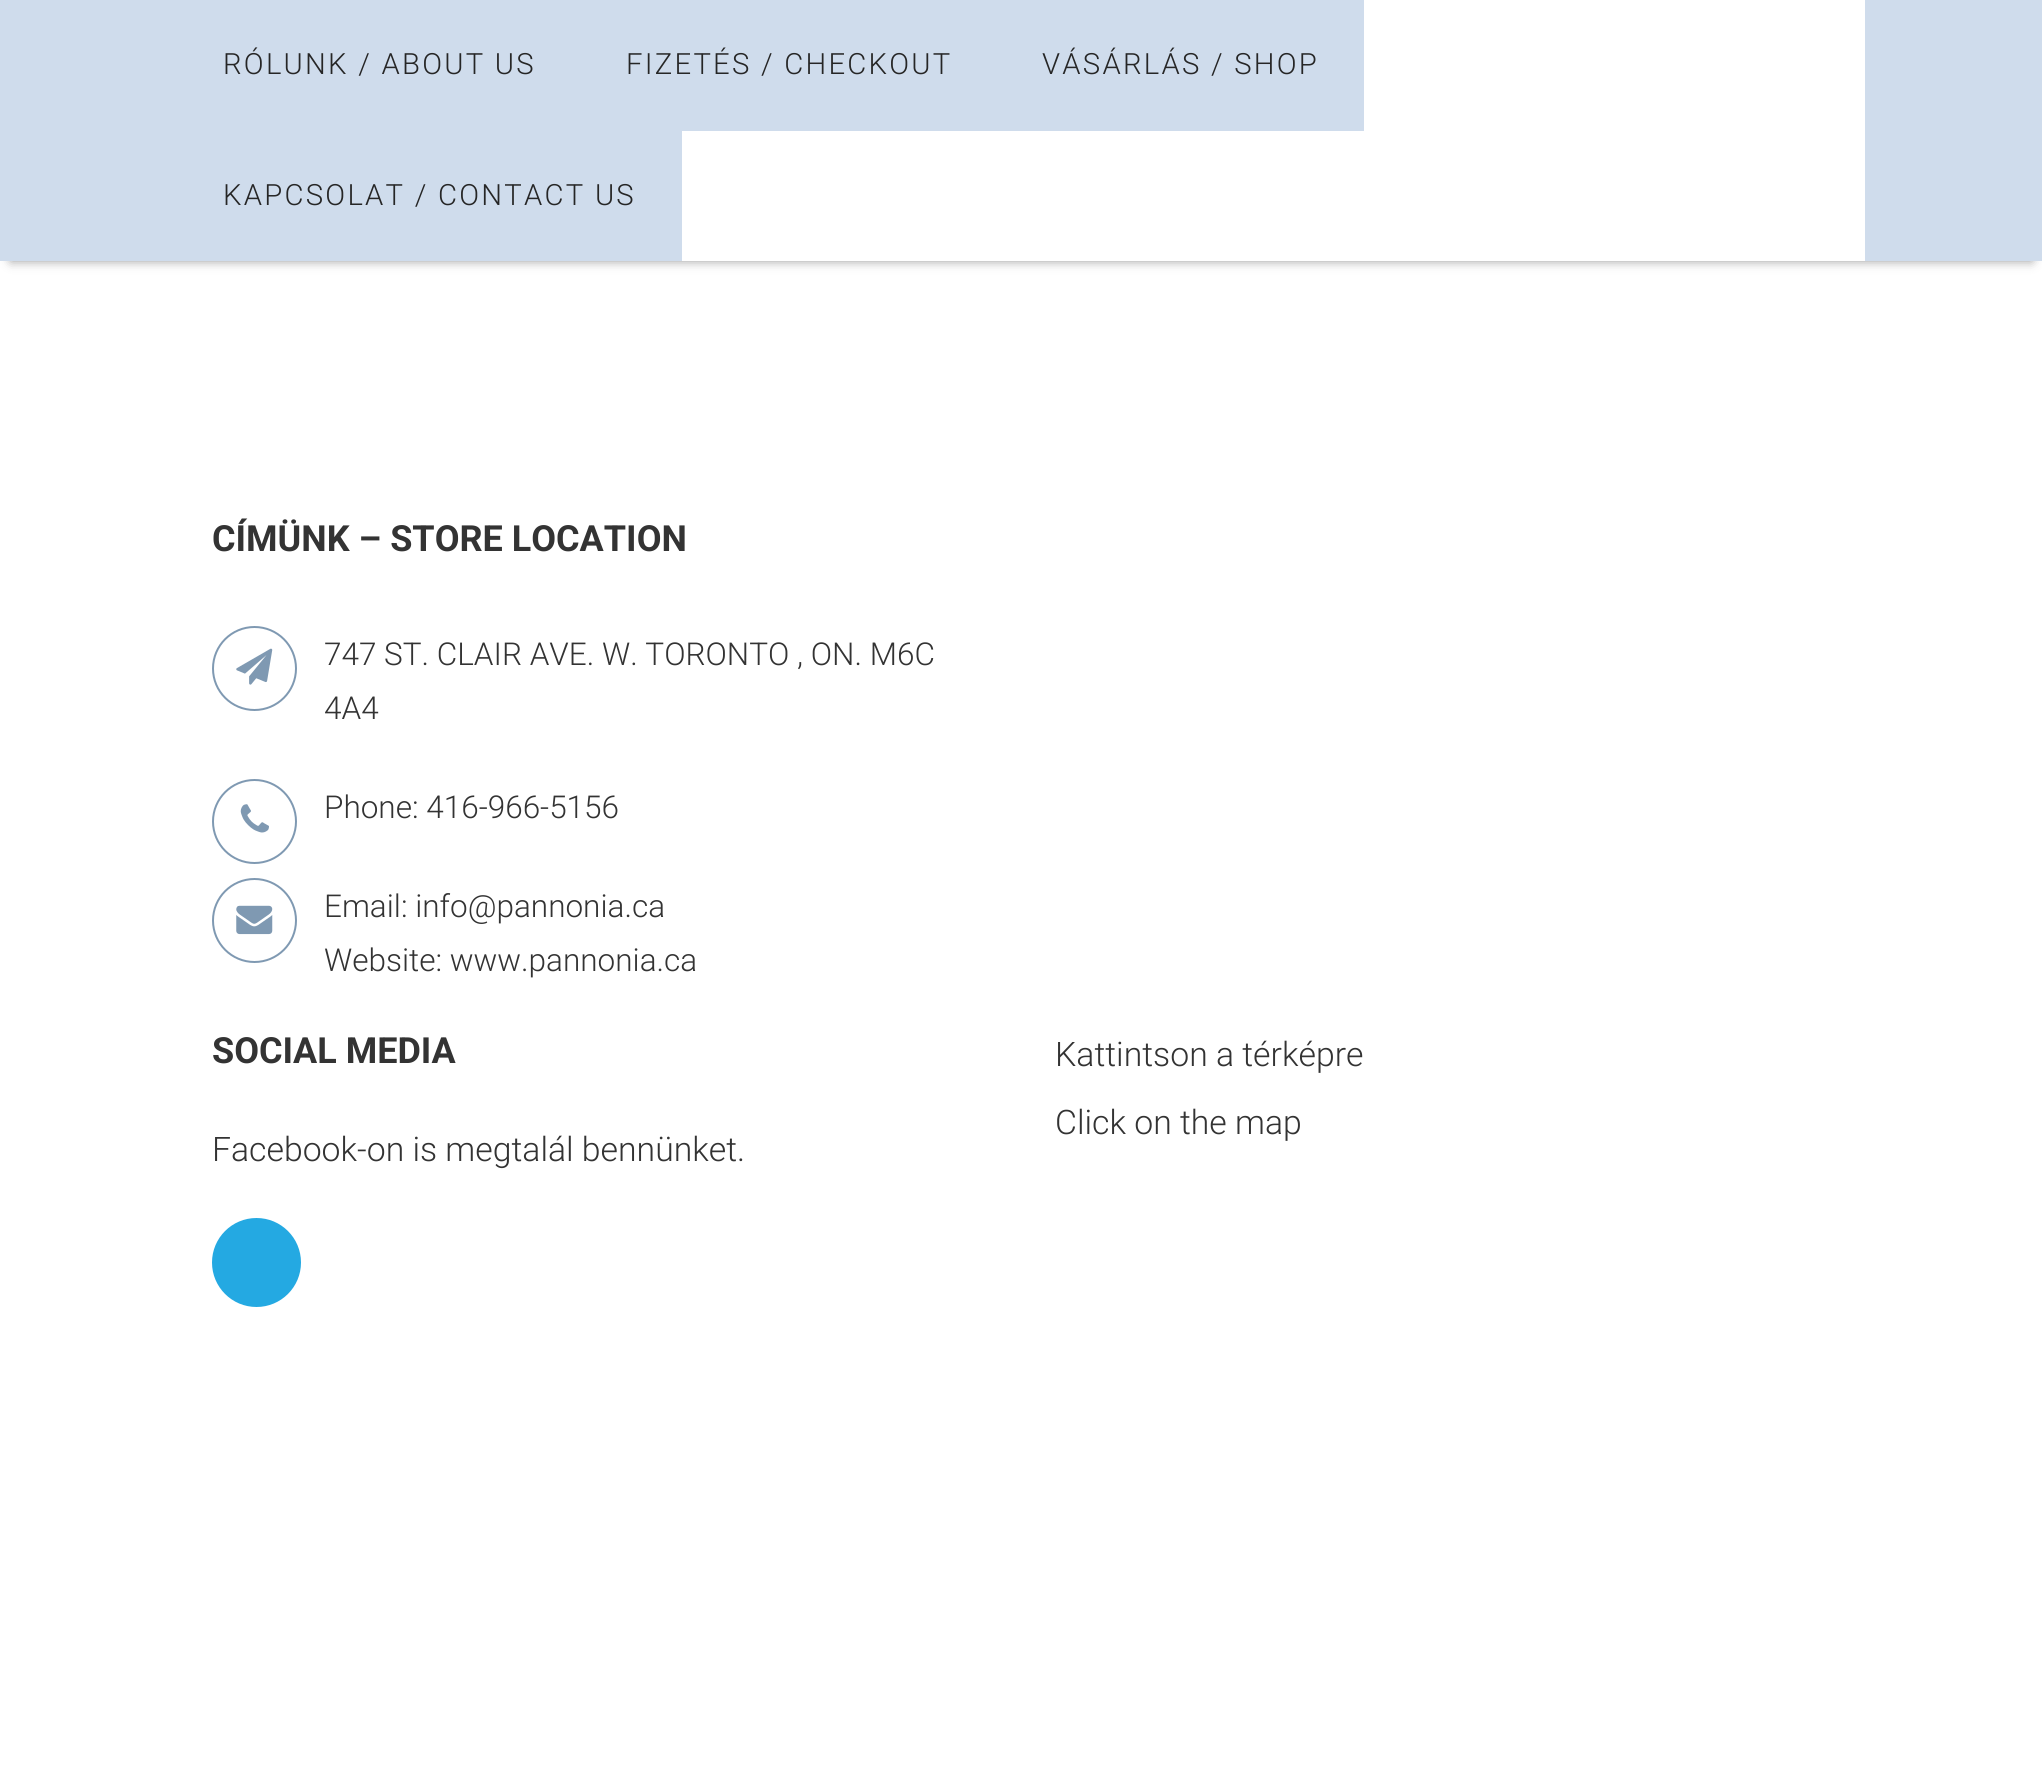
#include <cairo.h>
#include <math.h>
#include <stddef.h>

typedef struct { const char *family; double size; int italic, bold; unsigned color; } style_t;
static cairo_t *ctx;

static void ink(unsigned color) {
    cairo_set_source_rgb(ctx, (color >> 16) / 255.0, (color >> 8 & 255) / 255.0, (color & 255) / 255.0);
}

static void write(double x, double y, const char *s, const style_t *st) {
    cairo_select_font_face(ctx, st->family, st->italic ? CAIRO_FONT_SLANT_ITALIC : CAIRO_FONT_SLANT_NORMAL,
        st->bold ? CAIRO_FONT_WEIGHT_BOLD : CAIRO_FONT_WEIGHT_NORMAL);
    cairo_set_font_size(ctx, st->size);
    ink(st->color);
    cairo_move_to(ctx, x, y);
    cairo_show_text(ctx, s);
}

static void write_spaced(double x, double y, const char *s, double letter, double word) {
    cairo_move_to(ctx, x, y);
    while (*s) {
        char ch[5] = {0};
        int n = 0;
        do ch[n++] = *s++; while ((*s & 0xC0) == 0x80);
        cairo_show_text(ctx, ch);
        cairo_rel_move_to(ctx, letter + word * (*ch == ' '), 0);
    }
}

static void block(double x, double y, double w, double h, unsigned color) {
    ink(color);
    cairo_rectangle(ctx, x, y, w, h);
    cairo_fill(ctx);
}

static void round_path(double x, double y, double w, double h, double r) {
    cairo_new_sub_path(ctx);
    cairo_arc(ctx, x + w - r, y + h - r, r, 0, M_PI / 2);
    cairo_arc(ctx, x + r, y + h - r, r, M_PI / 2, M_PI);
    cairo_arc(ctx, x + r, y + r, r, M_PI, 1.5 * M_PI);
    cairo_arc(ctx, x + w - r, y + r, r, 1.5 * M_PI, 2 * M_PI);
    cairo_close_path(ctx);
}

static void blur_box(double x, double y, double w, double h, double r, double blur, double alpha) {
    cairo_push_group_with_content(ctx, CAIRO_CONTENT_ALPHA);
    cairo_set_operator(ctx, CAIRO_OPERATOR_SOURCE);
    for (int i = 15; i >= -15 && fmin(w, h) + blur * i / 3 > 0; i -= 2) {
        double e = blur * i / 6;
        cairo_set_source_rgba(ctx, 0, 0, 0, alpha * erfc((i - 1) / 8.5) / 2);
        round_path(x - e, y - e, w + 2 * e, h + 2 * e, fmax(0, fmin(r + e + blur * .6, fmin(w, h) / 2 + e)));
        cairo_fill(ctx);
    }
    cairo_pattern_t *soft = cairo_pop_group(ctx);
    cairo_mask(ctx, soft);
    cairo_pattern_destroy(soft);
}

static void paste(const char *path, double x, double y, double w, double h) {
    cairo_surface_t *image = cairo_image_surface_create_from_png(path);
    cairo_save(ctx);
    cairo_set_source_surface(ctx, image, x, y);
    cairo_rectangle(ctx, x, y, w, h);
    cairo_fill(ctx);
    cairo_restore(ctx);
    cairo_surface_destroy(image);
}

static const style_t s1 = {"Roboto", 36, 0, 1, 0x333333};
static const style_t s2 = {"Roboto Light", 31.5, 0, 0, 0x333333};
static const style_t s3 = {"Roboto Light", 33.75, 0, 0, 0x333333};

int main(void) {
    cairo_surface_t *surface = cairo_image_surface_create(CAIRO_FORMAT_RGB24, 2042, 1778);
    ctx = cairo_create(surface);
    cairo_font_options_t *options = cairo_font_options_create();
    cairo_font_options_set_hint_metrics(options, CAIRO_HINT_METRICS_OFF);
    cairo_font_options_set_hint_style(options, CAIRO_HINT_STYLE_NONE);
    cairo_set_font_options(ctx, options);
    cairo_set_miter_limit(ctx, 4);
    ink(0xffffff);
    cairo_paint(ctx);
    ink(0x000000);
    blur_box(11, 23, 2021, 238, 0, 5.5, 0.4);
    block(0, 0, 2042, 261, 0xcfdcec);
    block(682, 0, 1183, 261, 0xffffff);
    cairo_select_font_face(ctx, "Roboto Light", CAIRO_FONT_SLANT_NORMAL, CAIRO_FONT_WEIGHT_NORMAL);
    cairo_set_font_size(ctx, 29.25);
    ink(0x262626);
    write_spaced(223, 74, "RÓLUNK / ABOUT US", 2.25, 0);
    block(682, 0, 682, 131, 0xcfdcec);
    ink(0x262626);
    write_spaced(626, 74, "FIZETÉS / CHECKOUT", 2.25, 0);
    write_spaced(1042, 74, "VÁSÁRLÁS / SHOP", 2.25, 0);
    write_spaced(223, 205, "KAPCSOLAT / CONTACT US", 2.25, 0);
    write(212, 551, "CÍMÜNK – STORE LOCATION", &s1);
    cairo_new_path(ctx);
    cairo_arc(ctx, 254.5, 668.5, 41.5, 0, 2 * M_PI);
    ink(0x7f99b2);
    cairo_stroke(ctx);
    paste("pic1.png", 236, 648, 37, 37);
    write(324, 665, "747 ST. CLAIR AVE. W. TORONTO , ON. M6C", &s2);
    write(324, 719, "4A4", &s2);
    cairo_new_path(ctx);
    cairo_arc(ctx, 254.5, 821.5, 41.5, 0, 2 * M_PI);
    ink(0x7f99b2);
    cairo_stroke(ctx);
    paste("pic2.png", 240, 804, 29, 29);
    write(324, 818, "Phone: 416-966-5156", &s2);
    cairo_new_path(ctx);
    cairo_arc(ctx, 254.5, 920.5, 41.5, 0, 2 * M_PI);
    ink(0x7f99b2);
    cairo_stroke(ctx);
    paste("pic3.png", 236, 905, 37, 30);
    write(324, 917, "Email: info@pannonia.ca", &s2);
    write(324, 971, "Website: www.pannonia.ca", &s2);
    write(212, 1063, "SOCIAL MEDIA", &s1);
    write(212, 1161, "Facebook-on is megtalál bennünket.", &s3);
    ink(0x24a9e2);
    cairo_new_path(ctx);
    cairo_arc(ctx, 256.5, 1262.5, 48, 0, 2 * M_PI);
    cairo_fill_preserve(ctx);
    ink(0xffffff);
    cairo_set_line_width(ctx, 7);
    cairo_stroke(ctx);
    write(1055, 1066, "Kattintson a térképre", &s3);
    write(1055, 1134, "Click on the map", &s3);
    cairo_surface_write_to_png(surface, "screenshot.png");
    cairo_font_options_destroy(options);
    cairo_destroy(ctx);
    cairo_surface_destroy(surface);
    return 0;
}
